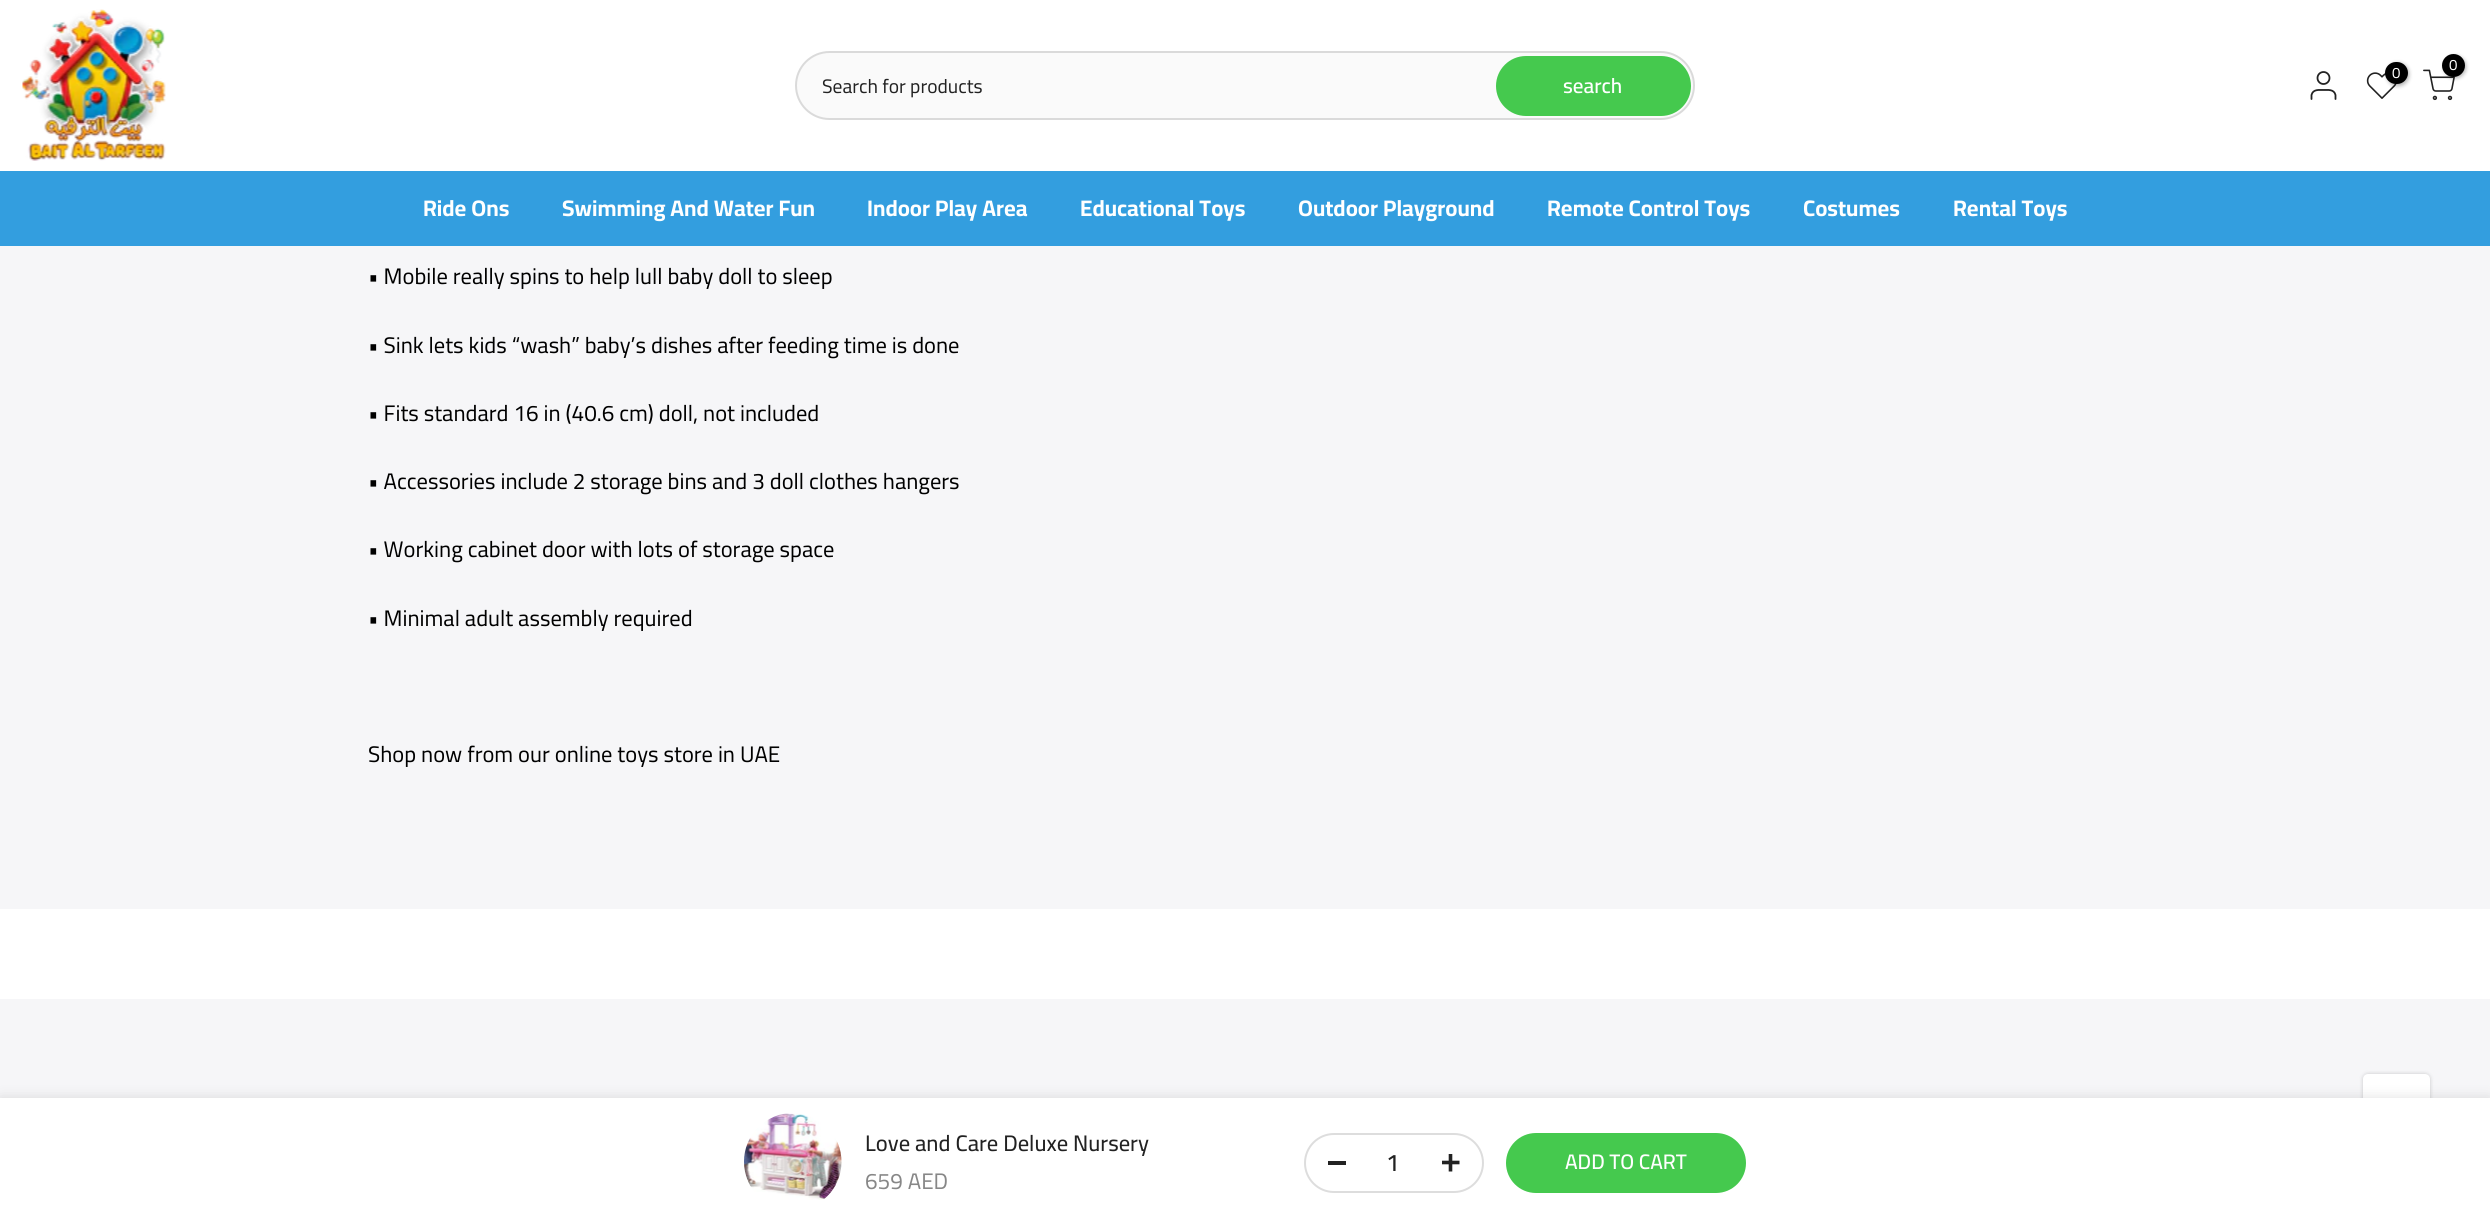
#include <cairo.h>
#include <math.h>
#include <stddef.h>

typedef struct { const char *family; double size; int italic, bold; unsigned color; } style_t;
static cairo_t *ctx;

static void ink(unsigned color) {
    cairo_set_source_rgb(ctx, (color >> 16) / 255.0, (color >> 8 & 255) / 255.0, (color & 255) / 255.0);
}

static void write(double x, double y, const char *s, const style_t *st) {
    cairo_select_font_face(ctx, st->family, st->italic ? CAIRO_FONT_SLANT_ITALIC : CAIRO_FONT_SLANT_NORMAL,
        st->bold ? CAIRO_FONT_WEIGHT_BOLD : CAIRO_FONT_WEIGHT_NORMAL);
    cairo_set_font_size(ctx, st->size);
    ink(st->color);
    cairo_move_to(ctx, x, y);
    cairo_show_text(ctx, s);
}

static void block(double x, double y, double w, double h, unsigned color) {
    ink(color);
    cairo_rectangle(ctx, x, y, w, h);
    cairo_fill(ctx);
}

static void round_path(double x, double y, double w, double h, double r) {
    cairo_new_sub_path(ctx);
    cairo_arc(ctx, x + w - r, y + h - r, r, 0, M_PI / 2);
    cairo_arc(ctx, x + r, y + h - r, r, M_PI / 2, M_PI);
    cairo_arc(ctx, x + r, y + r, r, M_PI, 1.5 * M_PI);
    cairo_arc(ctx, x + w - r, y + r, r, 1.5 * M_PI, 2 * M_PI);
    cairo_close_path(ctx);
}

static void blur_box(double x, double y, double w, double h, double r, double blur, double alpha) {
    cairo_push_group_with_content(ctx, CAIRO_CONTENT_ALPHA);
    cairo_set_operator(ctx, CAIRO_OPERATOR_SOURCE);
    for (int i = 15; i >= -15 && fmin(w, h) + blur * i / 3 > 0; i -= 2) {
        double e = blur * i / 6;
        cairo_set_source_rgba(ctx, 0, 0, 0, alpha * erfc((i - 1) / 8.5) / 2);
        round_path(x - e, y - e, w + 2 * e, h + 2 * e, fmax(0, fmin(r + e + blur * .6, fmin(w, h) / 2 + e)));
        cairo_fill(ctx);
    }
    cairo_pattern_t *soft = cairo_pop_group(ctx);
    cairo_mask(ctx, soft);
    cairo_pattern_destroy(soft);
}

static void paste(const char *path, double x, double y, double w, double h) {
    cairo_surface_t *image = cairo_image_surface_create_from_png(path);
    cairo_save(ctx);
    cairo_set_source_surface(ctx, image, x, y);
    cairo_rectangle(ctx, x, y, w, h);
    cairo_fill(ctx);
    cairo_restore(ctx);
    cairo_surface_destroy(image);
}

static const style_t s1 = {"Cairo", 15, 0, 0, 0xffffff};
static const style_t s2 = {"Cairo", 19.5, 0, 0, 0x222222};
static const style_t s3 = {"Cairo SemiBold", 21, 0, 0, 0xffffff};
static const style_t s4 = {"Cairo", 22.5, 0, 1, 0xffffff};
static const style_t s5 = {"Cairo", 22.5, 0, 0, 0x000000};
static const style_t s6 = {"Cairo Medium", 22.5, 0, 0, 0x222222};
static const style_t s7 = {"Cairo", 22.5, 0, 0, 0x878787};
static const style_t s8 = {"Cairo SemiBold", 24, 0, 0, 0x222222};

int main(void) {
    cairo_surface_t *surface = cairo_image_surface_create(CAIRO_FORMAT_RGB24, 2490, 1225);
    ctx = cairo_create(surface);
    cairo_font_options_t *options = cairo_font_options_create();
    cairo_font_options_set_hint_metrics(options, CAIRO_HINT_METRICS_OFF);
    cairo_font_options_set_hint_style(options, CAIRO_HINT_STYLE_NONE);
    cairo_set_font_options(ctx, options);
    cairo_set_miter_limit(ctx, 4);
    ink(0xffffff);
    cairo_paint(ctx);
    paste("pic1.png", 22, 9, 144, 152);
    paste("pic2.png", 2423, 69, 32, 32);
    ink(0x000000);
    blur_box(2444, 56, 22, 22, 11, 2, 0.3);
    ink(0x000000);
    cairo_arc(ctx, 2453.5, 65.5, 11.5, 0, 2 * M_PI);
    cairo_fill(ctx);
    write(2449, 70, "0", &s1);
    cairo_new_path(ctx);
    cairo_arc(ctx, 2323.5, 78, 6, 0, 2 * M_PI);
    ink(0x222222);
    cairo_set_line_width(ctx, 1.8);
    cairo_stroke(ctx);
    cairo_new_path(ctx);
    cairo_move_to(ctx, 2335.5, 99);
    cairo_line_to(ctx, 2335.5, 95);
    cairo_curve_to(ctx, 2334, 89, 2328, 90, 2323.5, 90);
    cairo_curve_to(ctx, 2319, 90, 2313, 89, 2311.5, 95);
    cairo_line_to(ctx, 2311.5, 99);
    cairo_set_line_cap(ctx, CAIRO_LINE_CAP_ROUND);
    cairo_set_line_join(ctx, CAIRO_LINE_JOIN_ROUND);
    cairo_stroke(ctx);
    paste("pic3.png", 2366, 72, 31, 27);
    ink(0x000000);
    blur_box(2387, 63, 22, 23, 11, 2, 0.3);
    ink(0x000000);
    round_path(2385, 62, 23, 22, 11);
    cairo_fill(ctx);
    write(2392, 78, "0", &s1);
    ink(0xfafafa);
    round_path(796, 52, 898, 67, 33.5);
    cairo_fill_preserve(ctx);
    ink(0xdadada);
    cairo_set_line_width(ctx, 2);
    cairo_set_line_cap(ctx, CAIRO_LINE_CAP_BUTT);
    cairo_set_line_join(ctx, CAIRO_LINE_JOIN_MITER);
    cairo_stroke(ctx);
    write(822, 93, "Search for products", &s2);
    ink(0x45c94e);
    round_path(1496, 56, 195, 60, 30);
    cairo_fill(ctx);
    write(1563, 93, "search", &s3);
    block(0, 171, 2490, 75, 0x339edf);
    write(423, 216, "Ride Ons", &s4);
    write(562, 216, "Swimming And Water Fun", &s4);
    write(867, 216, "Indoor Play Area", &s4);
    write(1080, 216, "Educational Toys", &s4);
    write(1298, 216, "Outdoor Playground", &s4);
    write(1547, 216, "Remote Control Toys", &s4);
    write(1803, 216, "Costumes", &s4);
    write(1953, 216, "Rental Toys", &s4);
    block(0, 246, 2490, 663, 0xf6f6f8);
    write(368, 284, "• Mobile really spins to help lull baby doll to sleep", &s5);
    write(368, 353, "• Sink lets kids “wash” baby’s dishes after feeding time is done", &s5);
    write(368, 421, "• Fits standard 16 in (40.6 cm) doll, not included", &s5);
    write(368, 489, "• Accessories include 2 storage bins and 3 doll clothes hangers", &s5);
    write(368, 557, "• Working cabinet door with lots of storage space", &s5);
    write(368, 626, "• Minimal adult assembly required", &s5);
    write(368, 762, "Shop now from our online toys store in UAE", &s5);
    block(0, 999, 2490, 99, 0xf6f6f8);
    ink(0x000000);
    blur_box(2363, 1074, 67, 68, 5, 2, 0.2);
    ink(0xffffff);
    round_path(2363, 1074, 67, 68, 5);
    cairo_fill(ctx);
    ink(0x000000);
    blur_box(0, 1098, 2490, 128, 0, 7, 0.12);
    block(0, 1098, 2490, 127, 0xffffff);
    paste("pic4.png", 744, 1113, 98, 87);
    write(865, 1151, "Love and Care Deluxe Nursery", &s6);
    write(865, 1189, "659 AED", &s7);
    round_path(1305, 1134, 178, 58, 29);
    ink(0xdddddd);
    cairo_stroke(ctx);
    block(1328, 1161, 18, 4, 0x222222);
    write(1386, 1171, "1", &s8);
    paste("pic5.png", 1442, 1154, 18, 18);
    ink(0x45c94e);
    round_path(1506, 1133, 240, 60, 30);
    cairo_fill(ctx);
    write(1565, 1169, "ADD TO CART", &s3);
    cairo_surface_write_to_png(surface, "screenshot.png");
    cairo_font_options_destroy(options);
    cairo_destroy(ctx);
    cairo_surface_destroy(surface);
    return 0;
}
